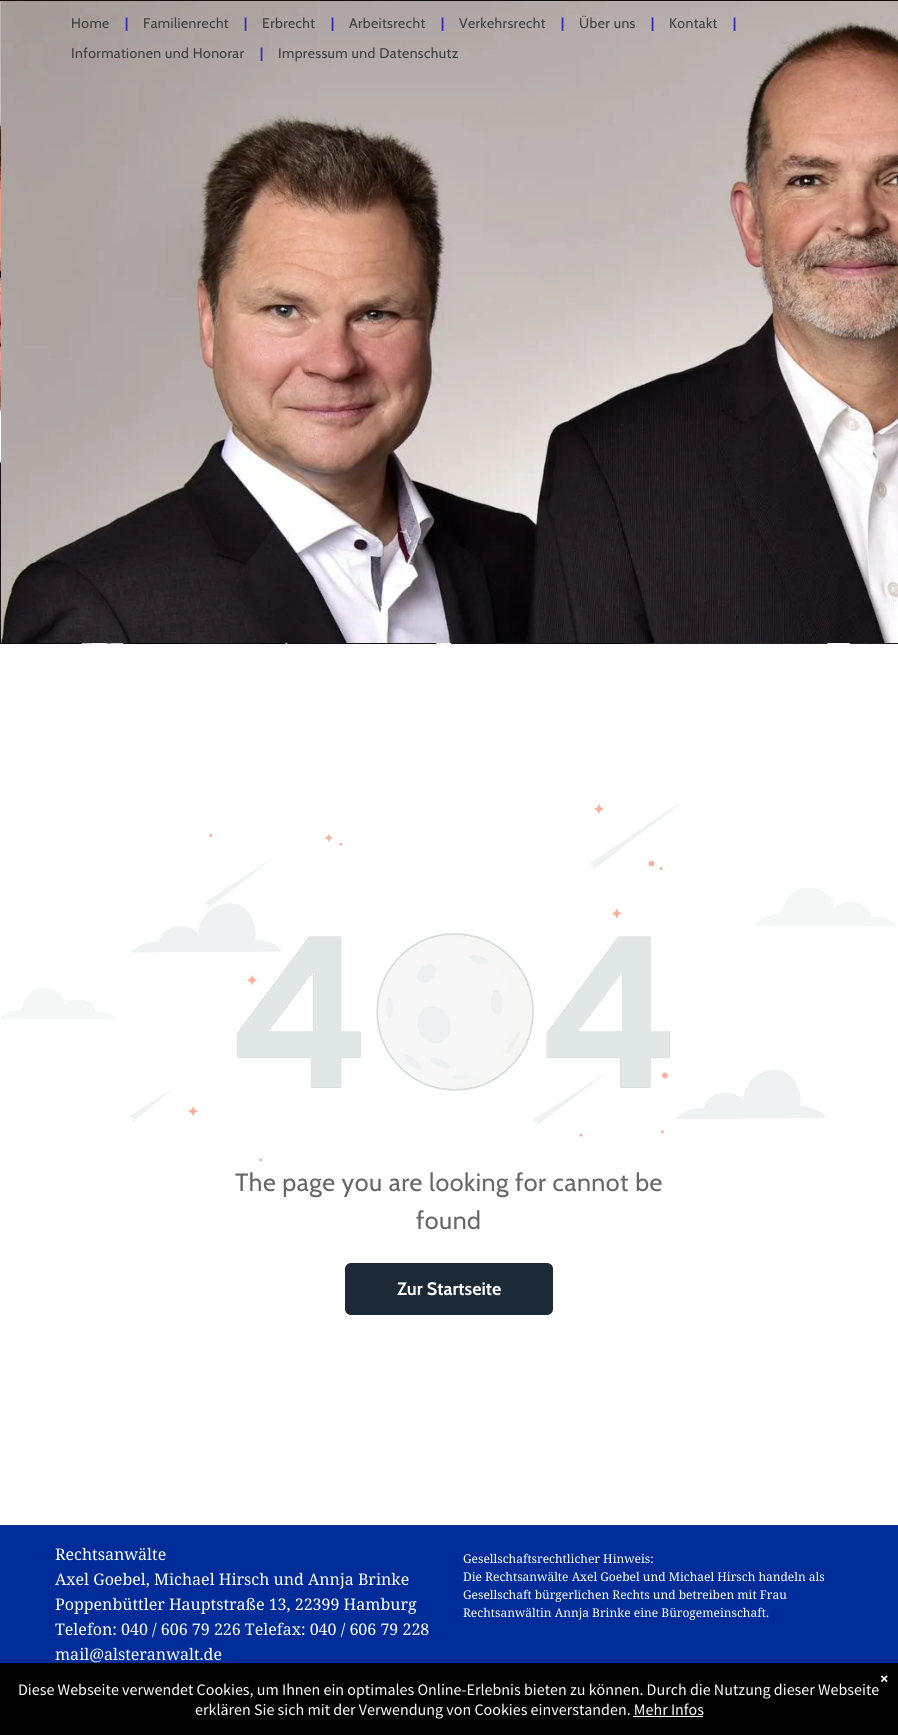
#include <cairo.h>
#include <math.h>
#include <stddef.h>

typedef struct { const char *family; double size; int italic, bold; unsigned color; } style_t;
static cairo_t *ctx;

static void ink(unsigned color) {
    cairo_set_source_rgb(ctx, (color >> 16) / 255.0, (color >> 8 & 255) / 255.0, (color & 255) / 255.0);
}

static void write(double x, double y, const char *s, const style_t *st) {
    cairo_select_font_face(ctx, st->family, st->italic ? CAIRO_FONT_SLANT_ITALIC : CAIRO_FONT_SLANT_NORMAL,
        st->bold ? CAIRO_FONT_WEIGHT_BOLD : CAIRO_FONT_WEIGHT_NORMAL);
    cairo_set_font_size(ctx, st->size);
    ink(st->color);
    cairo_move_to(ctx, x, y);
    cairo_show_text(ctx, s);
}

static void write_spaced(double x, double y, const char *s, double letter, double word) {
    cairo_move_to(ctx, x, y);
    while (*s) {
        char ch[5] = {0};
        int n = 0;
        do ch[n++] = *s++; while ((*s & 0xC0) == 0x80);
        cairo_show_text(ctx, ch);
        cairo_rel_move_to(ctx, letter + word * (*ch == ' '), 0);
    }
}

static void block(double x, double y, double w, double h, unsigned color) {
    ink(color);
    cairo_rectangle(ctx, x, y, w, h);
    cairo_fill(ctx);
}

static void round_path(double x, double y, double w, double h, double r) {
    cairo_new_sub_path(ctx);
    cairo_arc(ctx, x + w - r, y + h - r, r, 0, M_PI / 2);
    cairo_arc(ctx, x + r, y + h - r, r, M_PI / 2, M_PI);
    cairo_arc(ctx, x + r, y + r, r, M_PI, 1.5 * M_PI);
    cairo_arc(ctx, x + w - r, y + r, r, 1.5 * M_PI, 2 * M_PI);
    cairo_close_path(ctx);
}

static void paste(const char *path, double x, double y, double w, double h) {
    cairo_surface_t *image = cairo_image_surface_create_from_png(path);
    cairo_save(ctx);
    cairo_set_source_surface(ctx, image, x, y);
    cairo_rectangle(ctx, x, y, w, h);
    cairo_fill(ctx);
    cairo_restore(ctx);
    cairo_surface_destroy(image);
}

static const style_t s1 = {"Cabin", 14, 0, 1, 0x3428b6};
static const style_t s2 = {"Cabin", 18, 0, 1, 0xffffff};
static const style_t s3 = {"Noto Serif", 16, 0, 0, 0xffffff};
static const style_t s4 = {"Noto Serif", 12, 0, 0, 0xffffff};
static const style_t s5 = {"Source Sans Pro", 16, 0, 1, 0xffffff};
static const style_t s6 = {"Source Sans Pro", 16, 0, 0, 0xffffff};

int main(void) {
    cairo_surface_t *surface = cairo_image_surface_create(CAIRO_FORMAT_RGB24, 898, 1735);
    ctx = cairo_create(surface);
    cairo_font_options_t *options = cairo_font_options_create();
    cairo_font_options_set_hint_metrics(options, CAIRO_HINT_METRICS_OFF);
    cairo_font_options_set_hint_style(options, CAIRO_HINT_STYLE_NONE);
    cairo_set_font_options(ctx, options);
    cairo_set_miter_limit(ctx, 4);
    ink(0xffffff);
    cairo_paint(ctx);
    paste("pic1.png", 0, 0, 898, 644);
    paste("pic2.png", 1, 1, 897, 642);
    cairo_select_font_face(ctx, "Cabin", CAIRO_FONT_SLANT_NORMAL, CAIRO_FONT_WEIGHT_NORMAL);
    cairo_set_font_size(ctx, 14);
    ink(0x3d3d3d);
    write_spaced(71, 28, "Home", 0.4, 0);
    write(125, 28, "|", &s1);
    cairo_select_font_face(ctx, "Cabin", CAIRO_FONT_SLANT_NORMAL, CAIRO_FONT_WEIGHT_NORMAL);
    ink(0x3d3d3d);
    write_spaced(143, 28, "Familienrecht", 0.4, 0);
    write(244, 28, "|", &s1);
    cairo_select_font_face(ctx, "Cabin", CAIRO_FONT_SLANT_NORMAL, CAIRO_FONT_WEIGHT_NORMAL);
    ink(0x3d3d3d);
    write_spaced(262, 28, "Erbrecht", 0.4, 0);
    write(331, 28, "|", &s1);
    cairo_select_font_face(ctx, "Cabin", CAIRO_FONT_SLANT_NORMAL, CAIRO_FONT_WEIGHT_NORMAL);
    ink(0x3d3d3d);
    write_spaced(349, 28, "Arbeitsrecht", 0.4, 0);
    write(441, 28, "|", &s1);
    cairo_select_font_face(ctx, "Cabin", CAIRO_FONT_SLANT_NORMAL, CAIRO_FONT_WEIGHT_NORMAL);
    ink(0x3d3d3d);
    write_spaced(459, 28, "Verkehrsrecht", 0.4, 0);
    write(561, 28, "|", &s1);
    cairo_select_font_face(ctx, "Cabin", CAIRO_FONT_SLANT_NORMAL, CAIRO_FONT_WEIGHT_NORMAL);
    ink(0x3d3d3d);
    write_spaced(579, 28, "Über uns", 0.4, 0);
    write(651, 28, "|", &s1);
    cairo_select_font_face(ctx, "Cabin", CAIRO_FONT_SLANT_NORMAL, CAIRO_FONT_WEIGHT_NORMAL);
    ink(0x3d3d3d);
    write_spaced(669, 28, "Kontakt", 0.4, 0);
    write(733, 28, "|", &s1);
    cairo_select_font_face(ctx, "Cabin", CAIRO_FONT_SLANT_NORMAL, CAIRO_FONT_WEIGHT_NORMAL);
    ink(0x3d3d3d);
    write_spaced(71, 58, "Informationen und Honorar", 0.4, 0);
    write(260, 58, "|", &s1);
    cairo_select_font_face(ctx, "Cabin", CAIRO_FONT_SLANT_NORMAL, CAIRO_FONT_WEIGHT_NORMAL);
    ink(0x3d3d3d);
    write_spaced(278, 58, "Impressum und Datenschutz", 0.4, 0);
    paste("pic3.png", 0, 796, 897, 366);
    cairo_set_font_size(ctx, 25);
    ink(0x666666);
    write_spaced(235, 1191, "The page you are looking for cannot be", 0.5, 0);
    write_spaced(416, 1229, "found", 0.5, 0);
    ink(0x1c2936);
    round_path(345, 1263, 208, 52, 6);
    cairo_fill(ctx);
    write(397, 1295, "Zur Startseite", &s2);
    block(0, 1525, 898, 138, 0x002c9a);
    write(55, 1560, "Rechtsanwälte", &s3);
    write(55, 1585, "Axel Goebel, Michael Hirsch und Annja Brinke", &s3);
    write(55, 1610, "Poppenbüttler Hauptstraße 13, 22399 Hamburg", &s3);
    write(55, 1635, "Telefon: 040 / 606 79 226 Telefax: 040 / 606 79 228", &s3);
    write(55, 1660, "mail@alsteranwalt.de", &s3);
    write(463, 1563, "Gesellschaftsrechtlicher Hinweis:", &s4);
    write(463, 1581, "Die Rechtsanwälte Axel Goebel und Michael Hirsch handeln als", &s4);
    write(463, 1599, "Gesellschaft bürgerlichen Rechts und betreiben mit Frau", &s4);
    write(463, 1617, "Rechtsanwältin Annja Brinke eine Bürogemeinschaft.", &s4);
    block(0, 1663, 898, 72, 0x000000);
    write(880, 1684, "×", &s5);
    write(18, 1695, "Diese Webseite verwendet Cookies, um Ihnen ein optimales Online-Erlebnis bieten zu können. Durch die Nutzung dieser Webseite", &s6);
    write(195, 1715, "erklären Sie sich mit der Verwendung von Cookies einverstanden. Mehr Infos", &s6);
    block(633, 1716, 70, 1, 0xffffff);
    cairo_surface_write_to_png(surface, "screenshot.png");
    cairo_font_options_destroy(options);
    cairo_destroy(ctx);
    cairo_surface_destroy(surface);
    return 0;
}
